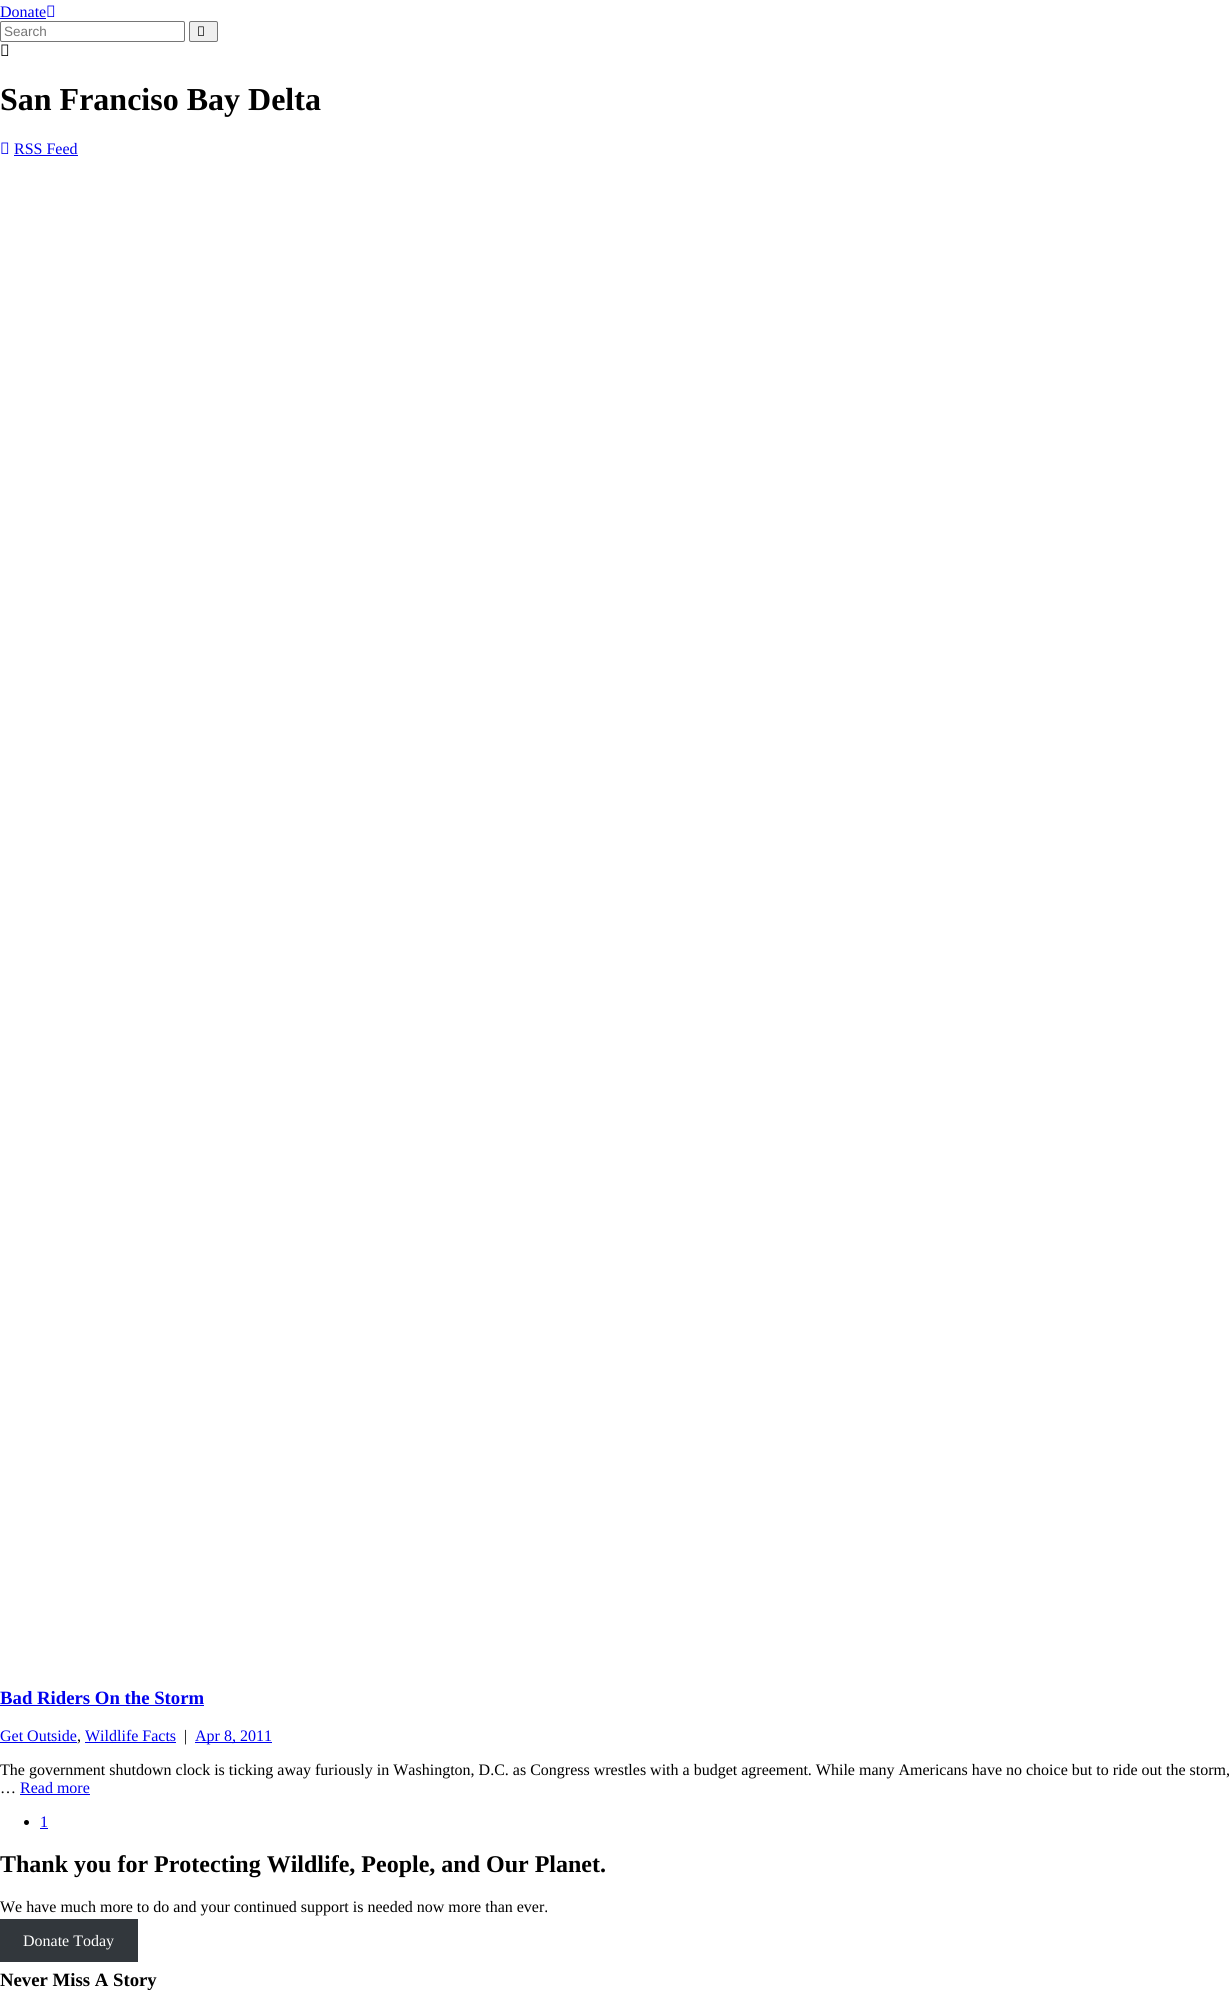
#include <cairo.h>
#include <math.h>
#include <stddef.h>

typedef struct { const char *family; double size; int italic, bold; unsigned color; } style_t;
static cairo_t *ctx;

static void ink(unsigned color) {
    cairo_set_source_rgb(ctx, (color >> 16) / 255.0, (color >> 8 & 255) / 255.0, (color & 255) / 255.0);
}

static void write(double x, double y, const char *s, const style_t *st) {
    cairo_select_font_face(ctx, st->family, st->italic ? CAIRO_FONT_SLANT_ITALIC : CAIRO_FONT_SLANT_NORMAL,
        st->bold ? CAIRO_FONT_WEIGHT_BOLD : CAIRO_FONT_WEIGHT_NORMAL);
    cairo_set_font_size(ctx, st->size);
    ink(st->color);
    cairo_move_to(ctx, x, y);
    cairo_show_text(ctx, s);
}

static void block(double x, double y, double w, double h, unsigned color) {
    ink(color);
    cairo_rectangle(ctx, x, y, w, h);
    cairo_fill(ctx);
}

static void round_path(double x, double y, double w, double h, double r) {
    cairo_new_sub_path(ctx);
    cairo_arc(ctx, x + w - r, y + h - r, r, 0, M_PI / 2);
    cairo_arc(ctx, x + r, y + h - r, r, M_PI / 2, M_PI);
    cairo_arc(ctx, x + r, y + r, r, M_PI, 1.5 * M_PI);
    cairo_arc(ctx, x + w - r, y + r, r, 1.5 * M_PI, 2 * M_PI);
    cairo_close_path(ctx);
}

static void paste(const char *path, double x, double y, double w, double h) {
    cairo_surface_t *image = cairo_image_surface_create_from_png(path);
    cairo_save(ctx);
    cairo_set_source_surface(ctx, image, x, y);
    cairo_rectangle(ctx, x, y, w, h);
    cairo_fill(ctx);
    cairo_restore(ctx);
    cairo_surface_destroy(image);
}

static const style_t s1 = {"Liberation Serif", 16, 0, 0, 0x0000ee};
static const style_t s2 = {"Liberation Sans", 13.5, 0, 0, 0x757575};
static const style_t s3 = {"Liberation Serif", 32, 0, 1, 0x000000};
static const style_t s4 = {"Liberation Serif", 18.75, 0, 1, 0x0000ee};
static const style_t s5 = {"Liberation Serif", 16, 0, 0, 0x000000};
static const style_t s6 = {"Liberation Serif", 24, 0, 1, 0x000000};
static const style_t s7 = {"Liberation Serif", 16, 0, 0, 0xffffff};
static const style_t s8 = {"Liberation Serif", 18.75, 0, 1, 0x000000};

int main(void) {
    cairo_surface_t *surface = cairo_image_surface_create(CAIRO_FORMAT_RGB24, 1230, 1995);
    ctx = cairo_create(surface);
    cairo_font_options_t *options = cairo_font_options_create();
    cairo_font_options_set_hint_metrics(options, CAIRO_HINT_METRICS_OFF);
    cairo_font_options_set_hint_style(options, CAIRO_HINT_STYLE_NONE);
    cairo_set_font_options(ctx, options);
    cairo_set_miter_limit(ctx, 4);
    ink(0xffffff);
    cairo_paint(ctx);
    write(0, 17, "Donate", &s1);
    block(0, 18, 46, 1, 0x0000ee);
    paste("pic1.png", 47, 5, 8, 12);
    round_path(0.5, 21.5, 184, 20, 1.5);
    ink(0x767676);
    cairo_set_line_width(ctx, 1);
    cairo_stroke(ctx);
    write(4, 36, "Search", &s2);
    ink(0xefefef);
    round_path(189.5, 21.5, 28, 20, 1.5);
    cairo_fill_preserve(ctx);
    ink(0x767676);
    cairo_stroke(ctx);
    paste("pic2.png", 198, 26, 6, 10);
    paste("pic3.png", 1, 44, 8, 12);
    write(0, 110, "San Franciso Bay Delta", &s3);
    paste("pic1.png", 1, 142, 8, 12);
    write(14, 154, "RSS Feed", &s1);
    block(14, 155, 64, 1, 0x0000ee);
    write(0, 1704, "Bad Riders On the Storm", &s4);
    block(0, 1705, 204, 1, 0x0000ee);
    write(0, 1741, "Get Outside", &s1);
    write(77, 1741, ",", &s5);
    block(0, 1742, 77, 1, 0x0000ee);
    block(85, 1742, 91, 1, 0x0000ee);
    write(85, 1741, "Wildlife Facts", &s1);
    write(184, 1741, "|", &s5);
    block(195, 1742, 77, 1, 0x0000ee);
    write(195, 1741, "Apr 8, 2011", &s1);
    write(0, 1775, "The government shutdown clock is ticking away furiously in Washington, D.C. as Congress wrestles with a budget agreement. While many Americans have no choice but to ride out the storm,", &s5);
    write(0, 1793, "…", &s5);
    write(20, 1793, "Read more", &s1);
    block(20, 1794, 70, 1, 0x0000ee);
    ink(0x000000);
    cairo_new_path(ctx);
    cairo_arc(ctx, 26.5, 1822.5, 2.5, 0, 2 * M_PI);
    cairo_fill(ctx);
    write(40, 1827, "1", &s1);
    block(40, 1828, 8, 1, 0x0000ee);
    write(0, 1872, "Thank you for Protecting Wildlife, People, and Our Planet.", &s6);
    write(0, 1912, "We have much more to do and your continued support is needed now more than ever.", &s5);
    block(0, 1919, 138, 43, 0x32373c);
    write(23, 1946, "Donate Today", &s7);
    write(0, 1986, "Never Miss A Story", &s8);
    cairo_surface_write_to_png(surface, "screenshot.png");
    cairo_font_options_destroy(options);
    cairo_destroy(ctx);
    cairo_surface_destroy(surface);
    return 0;
}
